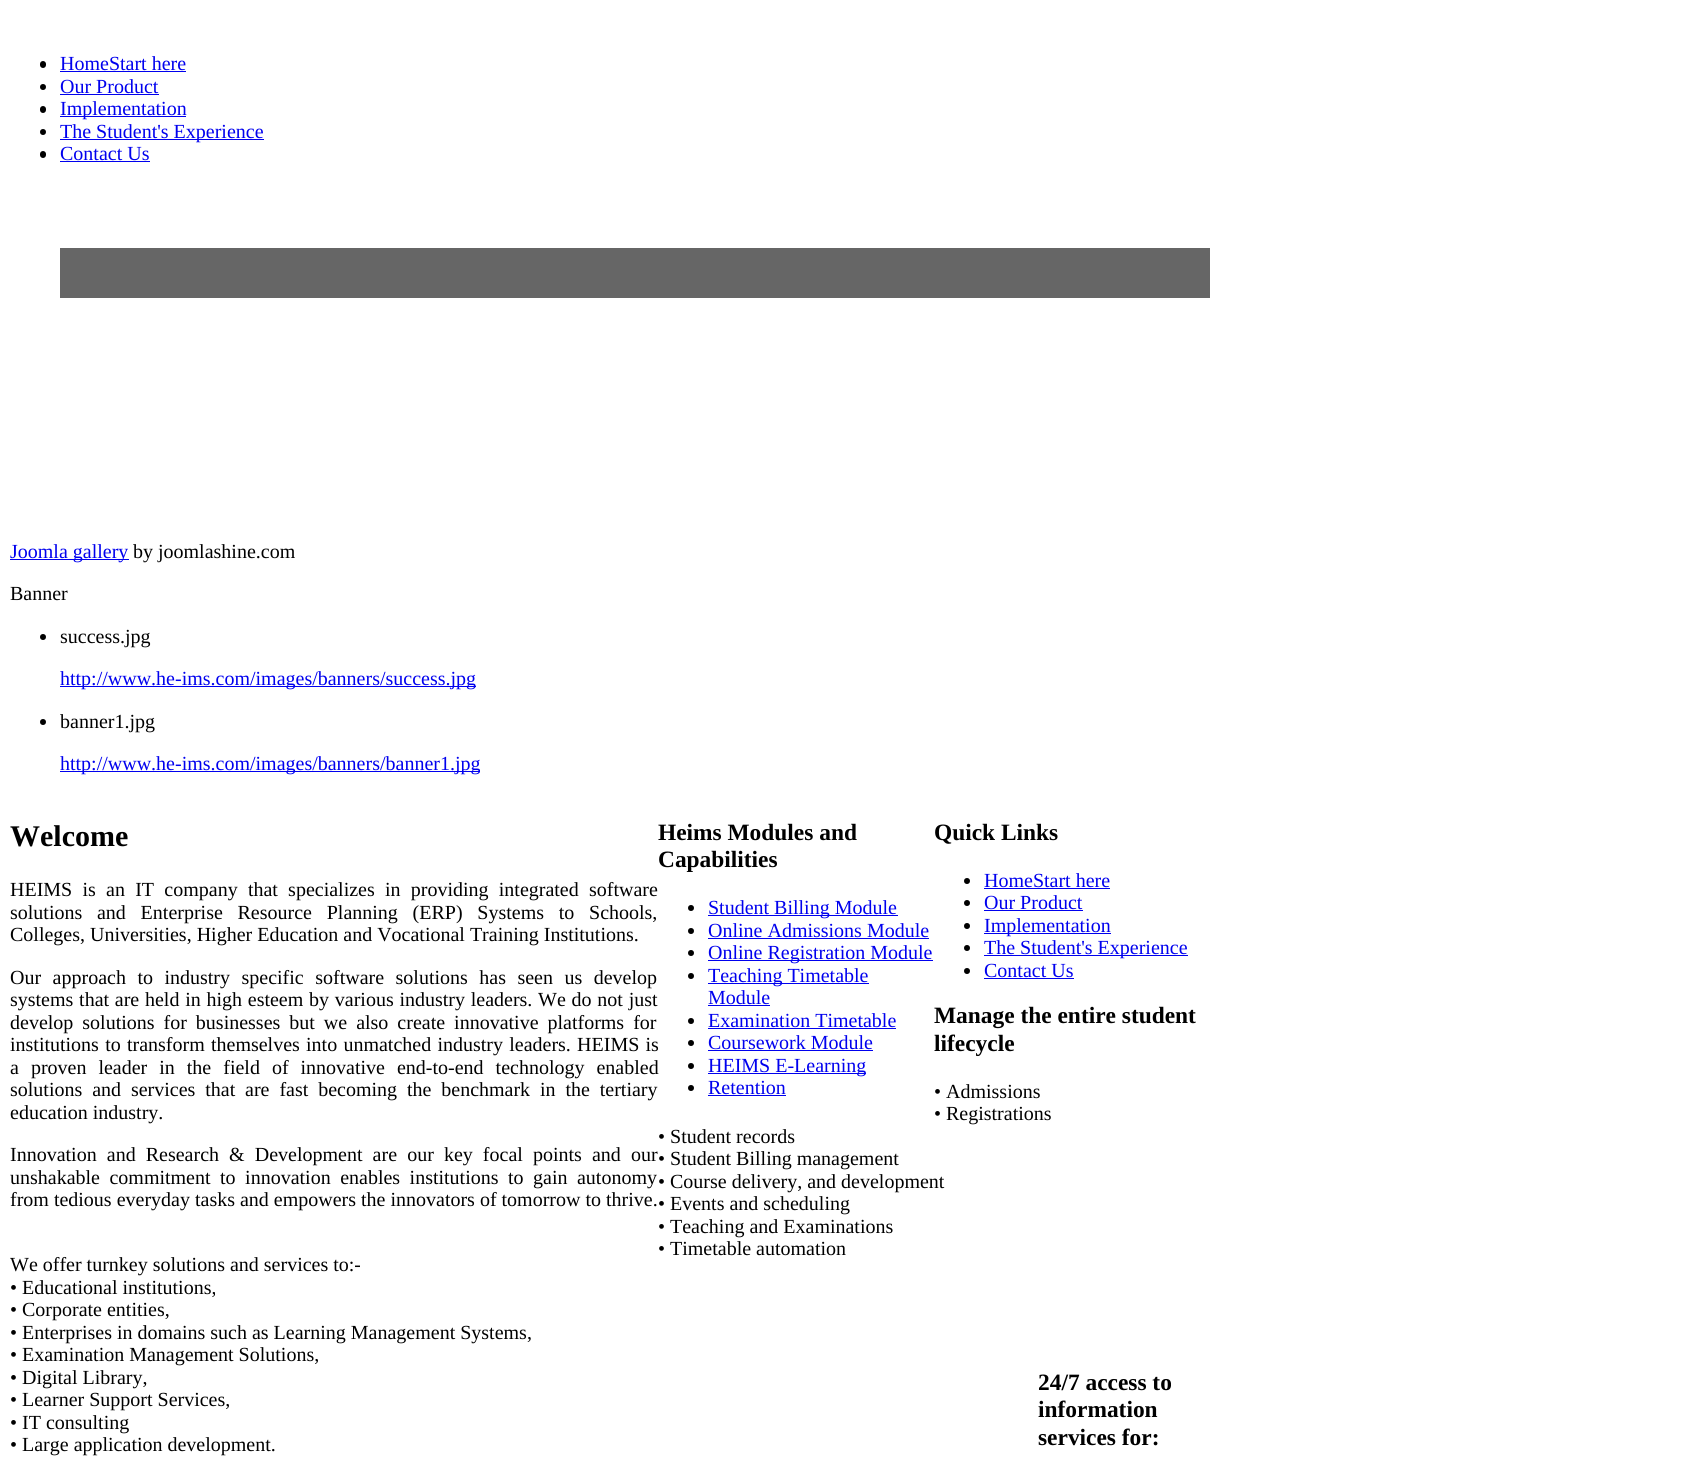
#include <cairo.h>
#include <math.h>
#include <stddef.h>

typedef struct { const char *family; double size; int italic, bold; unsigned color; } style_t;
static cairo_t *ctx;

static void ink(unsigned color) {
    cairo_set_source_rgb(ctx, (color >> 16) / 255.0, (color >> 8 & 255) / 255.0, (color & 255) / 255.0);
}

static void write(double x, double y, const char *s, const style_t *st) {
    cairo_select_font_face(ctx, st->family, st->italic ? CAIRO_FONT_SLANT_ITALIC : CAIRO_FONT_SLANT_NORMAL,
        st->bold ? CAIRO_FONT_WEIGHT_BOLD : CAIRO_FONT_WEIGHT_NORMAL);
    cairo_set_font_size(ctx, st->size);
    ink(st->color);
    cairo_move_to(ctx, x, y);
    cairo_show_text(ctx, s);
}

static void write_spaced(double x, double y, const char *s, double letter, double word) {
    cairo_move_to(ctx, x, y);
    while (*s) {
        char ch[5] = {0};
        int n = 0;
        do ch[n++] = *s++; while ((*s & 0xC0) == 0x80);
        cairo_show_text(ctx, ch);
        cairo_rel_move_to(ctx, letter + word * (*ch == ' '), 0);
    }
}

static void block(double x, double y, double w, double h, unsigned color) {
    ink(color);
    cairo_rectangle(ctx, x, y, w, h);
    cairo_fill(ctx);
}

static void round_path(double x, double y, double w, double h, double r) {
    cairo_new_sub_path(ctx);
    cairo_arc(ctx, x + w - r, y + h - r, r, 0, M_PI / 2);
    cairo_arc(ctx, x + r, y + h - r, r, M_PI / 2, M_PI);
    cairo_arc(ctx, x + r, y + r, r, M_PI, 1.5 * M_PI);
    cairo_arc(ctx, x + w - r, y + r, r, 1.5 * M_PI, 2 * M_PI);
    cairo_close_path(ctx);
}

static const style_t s1 = {"Liberation Serif", 20, 0, 0, 0x0000ee};
static const style_t s2 = {"Liberation Serif", 20, 0, 0, 0x000000};
static const style_t s3 = {"Liberation Serif", 30, 0, 1, 0x000000};
static const style_t s4 = {"Liberation Serif", 23.4, 0, 1, 0x000000};

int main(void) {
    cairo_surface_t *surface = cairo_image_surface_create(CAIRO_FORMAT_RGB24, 1693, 1459);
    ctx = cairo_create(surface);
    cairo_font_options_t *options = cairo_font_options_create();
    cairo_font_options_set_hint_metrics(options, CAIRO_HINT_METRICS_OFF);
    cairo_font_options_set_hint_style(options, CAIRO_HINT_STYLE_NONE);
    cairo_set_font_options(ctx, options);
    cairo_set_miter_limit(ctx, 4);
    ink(0xffffff);
    cairo_paint(ctx);
    ink(0x000000);
    round_path(40, 61, 6, 7, 3);
    cairo_fill(ctx);
    write(60, 70, "HomeStart here", &s1);
    block(60, 71, 126, 1, 0x0000ee);
    ink(0x000000);
    cairo_new_path(ctx);
    cairo_arc(ctx, 43, 87, 3, 0, 2 * M_PI);
    cairo_fill(ctx);
    write(60, 93, "Our Product", &s1);
    block(60, 94, 99, 1, 0x0000ee);
    ink(0x000000);
    round_path(40, 106, 6, 7, 3);
    cairo_fill(ctx);
    block(60, 116, 126, 1, 0x0000ee);
    write(60, 115, "Implementation", &s1);
    ink(0x000000);
    cairo_new_path(ctx);
    cairo_arc(ctx, 43, 132, 3, 0, 2 * M_PI);
    cairo_fill(ctx);
    block(60, 139, 204, 1, 0x0000ee);
    write(60, 138, "The Student's Experience", &s1);
    ink(0x000000);
    round_path(40, 151, 6, 7, 3);
    cairo_fill(ctx);
    write(60, 160, "Contact Us", &s1);
    block(60, 161, 90, 1, 0x0000ee);
    block(60, 248, 1150, 50, 0x666666);
    block(10, 559, 119, 1, 0x0000ee);
    write(10, 558, "Joomla gallery", &s1);
    write(133, 558, "by joomlashine.com", &s2);
    write(10, 600, "Banner", &s2);
    cairo_new_path(ctx);
    cairo_arc(ctx, 43, 637, 3, 0, 2 * M_PI);
    cairo_fill(ctx);
    write(60, 643, "success.jpg", &s2);
    block(60, 686, 416, 1, 0x0000ee);
    write(60, 685, "http://www.he-ims.com/images/banners/success.jpg", &s1);
    ink(0x000000);
    cairo_new_path(ctx);
    cairo_arc(ctx, 43, 722, 3, 0, 2 * M_PI);
    cairo_fill(ctx);
    write(60, 728, "banner1.jpg", &s2);
    block(60, 771, 420, 1, 0x0000ee);
    write(60, 770, "http://www.he-ims.com/images/banners/banner1.jpg", &s1);
    write(10, 846, "Welcome", &s3);
    cairo_select_font_face(ctx, "Liberation Serif", CAIRO_FONT_SLANT_NORMAL, CAIRO_FONT_WEIGHT_NORMAL);
    cairo_set_font_size(ctx, 20);
    write_spaced(10, 896, "HEIMS is an IT company that specializes in providing integrated software", 0, 5.25);
    write_spaced(10, 919, "solutions and Enterprise Resource Planning (ERP) Systems to Schools,", 0, 9.75);
    write(10, 941, "Colleges, Universities, Higher Education and Vocational Training Institutions.", &s2);
    write_spaced(10, 984, "Our approach to industry specific software solutions has seen us develop", 0, 6.5);
    write_spaced(10, 1006, "systems that are held in high esteem by various industry leaders. We do not just", 0, 0.75);
    write_spaced(10, 1029, "develop solutions for businesses but we also create innovative platforms for", 0, 4);
    write_spaced(10, 1051, "institutions to transform themselves into unmatched industry leaders. HEIMS is", 0, 1.25);
    write_spaced(10, 1074, "a proven leader in the field of innovative end-to-end technology enabled", 0, 7);
    write_spaced(10, 1096, "solutions and services that are fast becoming the benchmark in the tertiary", 0, 4.9);
    write(10, 1119, "education industry.", &s2);
    write_spaced(10, 1161, "Innovation and Research & Development are our key focal points and our", 0, 5.1);
    write_spaced(10, 1184, "unshakable commitment to innovation enables institutions to gain autonomy", 0, 4.5);
    write(10, 1206, "from tedious everyday tasks and empowers the innovators of tomorrow to thrive.", &s2);
    write(10, 1271, "We offer turnkey solutions and services to:-", &s2);
    write(10, 1294, "• Educational institutions,", &s2);
    write(10, 1316, "• Corporate entities,", &s2);
    write(10, 1339, "• Enterprises in domains such as Learning Management Systems,", &s2);
    write(10, 1361, "• Examination Management Solutions,", &s2);
    write(10, 1384, "• Digital Library,", &s2);
    write(10, 1406, "• Learner Support Services,", &s2);
    write(10, 1429, "• IT consulting", &s2);
    write(10, 1451, "• Large application development.", &s2);
    write(658, 840, "Heims Modules and", &s4);
    write(658, 867, "Capabilities", &s4);
    cairo_new_path(ctx);
    cairo_arc(ctx, 691, 908, 3, 0, 2 * M_PI);
    cairo_fill(ctx);
    block(708, 915, 190, 1, 0x0000ee);
    write(708, 914, "Student Billing Module", &s1);
    ink(0x000000);
    cairo_new_path(ctx);
    cairo_arc(ctx, 691, 931, 3, 0, 2 * M_PI);
    cairo_fill(ctx);
    write(708, 937, "Online Admissions Module", &s1);
    block(708, 938, 221, 1, 0x0000ee);
    ink(0x000000);
    cairo_new_path(ctx);
    cairo_arc(ctx, 691, 953, 3, 0, 2 * M_PI);
    cairo_fill(ctx);
    block(708, 960, 225, 1, 0x0000ee);
    write(708, 959, "Online Registration Module", &s1);
    ink(0x000000);
    cairo_new_path(ctx);
    cairo_arc(ctx, 691, 976, 3, 0, 2 * M_PI);
    cairo_fill(ctx);
    block(708, 983, 161, 1, 0x0000ee);
    write(708, 982, "Teaching Timetable", &s1);
    write(708, 1004, "Module", &s1);
    block(708, 1005, 62, 1, 0x0000ee);
    ink(0x000000);
    cairo_new_path(ctx);
    cairo_arc(ctx, 691, 1021, 3, 0, 2 * M_PI);
    cairo_fill(ctx);
    write(708, 1027, "Examination Timetable", &s1);
    block(708, 1028, 188, 1, 0x0000ee);
    ink(0x000000);
    cairo_new_path(ctx);
    cairo_arc(ctx, 691, 1043, 3, 0, 2 * M_PI);
    cairo_fill(ctx);
    write(708, 1049, "Coursework Module", &s1);
    block(708, 1050, 165, 1, 0x0000ee);
    ink(0x000000);
    cairo_new_path(ctx);
    cairo_arc(ctx, 691, 1066, 3, 0, 2 * M_PI);
    cairo_fill(ctx);
    block(708, 1073, 158, 1, 0x0000ee);
    write(708, 1072, "HEIMS E-Learning", &s1);
    ink(0x000000);
    cairo_new_path(ctx);
    cairo_arc(ctx, 691, 1088, 3, 0, 2 * M_PI);
    cairo_fill(ctx);
    write(708, 1094, "Retention", &s1);
    block(708, 1095, 78, 1, 0x0000ee);
    write(934, 840, "Quick Links", &s4);
    cairo_new_path(ctx);
    cairo_arc(ctx, 967, 881, 3, 0, 2 * M_PI);
    cairo_fill(ctx);
    write(984, 887, "HomeStart here", &s1);
    block(984, 888, 126, 1, 0x0000ee);
    ink(0x000000);
    cairo_new_path(ctx);
    cairo_arc(ctx, 967, 903, 3, 0, 2 * M_PI);
    cairo_fill(ctx);
    write(984, 909, "Our Product", &s1);
    block(984, 910, 99, 1, 0x0000ee);
    ink(0x000000);
    cairo_new_path(ctx);
    cairo_arc(ctx, 967, 926, 3, 0, 2 * M_PI);
    cairo_fill(ctx);
    block(984, 933, 127, 1, 0x0000ee);
    write(984, 932, "Implementation", &s1);
    ink(0x000000);
    cairo_new_path(ctx);
    cairo_arc(ctx, 967, 948, 3, 0, 2 * M_PI);
    cairo_fill(ctx);
    block(984, 955, 204, 1, 0x0000ee);
    write(984, 954, "The Student's Experience", &s1);
    ink(0x000000);
    cairo_new_path(ctx);
    cairo_arc(ctx, 967, 971, 3, 0, 2 * M_PI);
    cairo_fill(ctx);
    write(984, 977, "Contact Us", &s1);
    block(984, 978, 90, 1, 0x0000ee);
    write(934, 1023, "Manage the entire student", &s4);
    write(934, 1051, "lifecycle", &s4);
    write(934, 1098, "• Admissions", &s2);
    write(934, 1120, "• Registrations", &s2);
    write(658, 1143, "• Student records", &s2);
    write(658, 1165, "• Student Billing management", &s2);
    write(658, 1188, "• Course delivery, and development", &s2);
    write(658, 1210, "• Events and scheduling", &s2);
    write(658, 1233, "• Teaching and Examinations", &s2);
    write(658, 1255, "• Timetable automation", &s2);
    write(1038, 1390, "24/7 access to", &s4);
    write(1038, 1417, "information", &s4);
    write(1038, 1445, "services for:", &s4);
    cairo_surface_write_to_png(surface, "screenshot.png");
    cairo_font_options_destroy(options);
    cairo_destroy(ctx);
    cairo_surface_destroy(surface);
    return 0;
}
